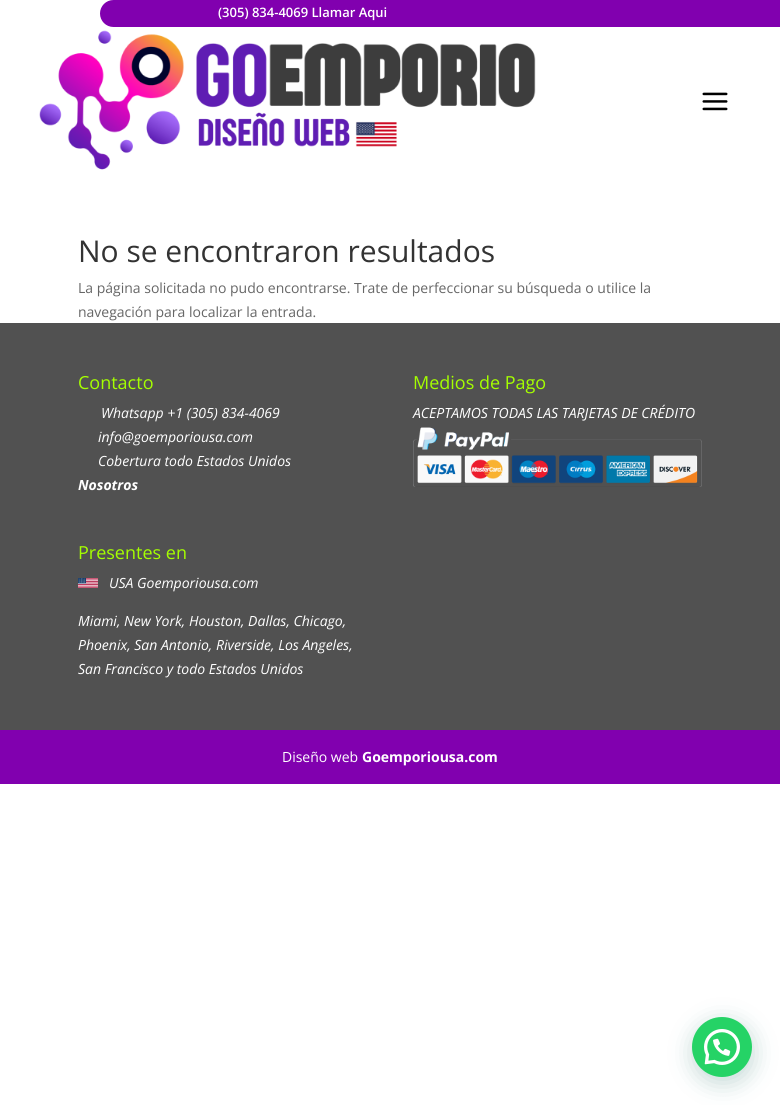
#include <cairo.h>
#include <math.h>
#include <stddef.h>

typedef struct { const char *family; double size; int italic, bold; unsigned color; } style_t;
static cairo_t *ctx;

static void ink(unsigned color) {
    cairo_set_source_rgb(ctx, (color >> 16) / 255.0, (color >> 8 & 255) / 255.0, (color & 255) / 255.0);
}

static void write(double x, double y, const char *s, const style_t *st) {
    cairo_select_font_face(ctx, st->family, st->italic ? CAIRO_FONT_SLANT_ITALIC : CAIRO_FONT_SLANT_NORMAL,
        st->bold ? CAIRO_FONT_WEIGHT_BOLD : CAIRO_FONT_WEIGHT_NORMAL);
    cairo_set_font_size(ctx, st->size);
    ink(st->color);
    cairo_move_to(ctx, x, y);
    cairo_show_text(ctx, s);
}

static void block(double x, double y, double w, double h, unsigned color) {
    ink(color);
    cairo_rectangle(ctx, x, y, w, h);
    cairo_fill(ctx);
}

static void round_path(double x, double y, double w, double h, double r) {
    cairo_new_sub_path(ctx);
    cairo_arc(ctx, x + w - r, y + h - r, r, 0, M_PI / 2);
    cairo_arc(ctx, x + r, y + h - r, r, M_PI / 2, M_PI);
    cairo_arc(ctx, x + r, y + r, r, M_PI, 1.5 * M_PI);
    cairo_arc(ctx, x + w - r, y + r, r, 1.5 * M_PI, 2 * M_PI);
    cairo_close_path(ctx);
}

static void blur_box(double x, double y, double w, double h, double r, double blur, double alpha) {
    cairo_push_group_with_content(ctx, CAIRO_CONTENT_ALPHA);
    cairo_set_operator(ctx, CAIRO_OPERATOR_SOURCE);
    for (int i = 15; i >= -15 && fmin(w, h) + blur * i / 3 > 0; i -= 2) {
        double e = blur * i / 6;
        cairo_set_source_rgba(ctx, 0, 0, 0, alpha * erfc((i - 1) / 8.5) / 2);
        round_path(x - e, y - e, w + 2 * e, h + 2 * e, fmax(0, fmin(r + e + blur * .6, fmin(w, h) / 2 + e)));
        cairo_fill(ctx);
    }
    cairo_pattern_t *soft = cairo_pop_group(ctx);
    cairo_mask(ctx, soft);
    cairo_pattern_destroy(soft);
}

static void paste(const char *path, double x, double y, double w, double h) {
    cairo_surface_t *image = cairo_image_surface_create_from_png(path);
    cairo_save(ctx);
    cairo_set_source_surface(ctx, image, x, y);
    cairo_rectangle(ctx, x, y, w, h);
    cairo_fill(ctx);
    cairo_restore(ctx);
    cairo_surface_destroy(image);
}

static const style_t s1 = {"Open Sans SemiBold", 13, 0, 0, 0xffffff};
static const style_t s2 = {"Open Sans", 30, 0, 0, 0x333333};
static const style_t s3 = {"Open Sans", 14, 0, 0, 0x666666};
static const style_t s4 = {"Open Sans", 18, 0, 0, 0xa5ff00};
static const style_t s5 = {"Open Sans", 14, 1, 0, 0xffffff};
static const style_t s6 = {"Open Sans", 14, 1, 1, 0xffffff};
static const style_t s7 = {"Open Sans", 14, 0, 0, 0xffffff};
static const style_t s8 = {"Open Sans", 14, 0, 1, 0xffffff};

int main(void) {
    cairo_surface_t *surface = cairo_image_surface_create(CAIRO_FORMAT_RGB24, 780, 1105);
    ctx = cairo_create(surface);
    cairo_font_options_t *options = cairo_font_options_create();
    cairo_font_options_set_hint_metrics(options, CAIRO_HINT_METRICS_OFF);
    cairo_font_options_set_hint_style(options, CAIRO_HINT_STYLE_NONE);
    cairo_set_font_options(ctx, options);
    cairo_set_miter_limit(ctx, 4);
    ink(0xffffff);
    cairo_paint(ctx);
    ink(0x8100af);
    cairo_new_path(ctx);
    cairo_move_to(ctx, 113.5, 0);
    cairo_line_to(ctx, 780, 0);
    cairo_line_to(ctx, 780, 27);
    cairo_line_to(ctx, 113.5, 27);
    cairo_curve_to(ctx, 106, 27, 100, 21, 100, 13.5);
    cairo_curve_to(ctx, 100, 6, 106, 0, 113.5, 0);
    cairo_close_path(ctx);
    cairo_fill(ctx);
    write(218, 17, "(305) 834-4069 Llamar Aqui", &s1);
    paste("pic1.png", 39, 30, 497, 140);
    paste("pic2.png", 702, 92, 26, 19);
    write(78, 262, "No se encontraron resultados", &s2);
    write(78, 293, "La página solicitada no pudo encontrarse. Trate de perfeccionar su búsqueda o utilice la", &s3);
    write(78, 317, "navegación para localizar la entrada.", &s3);
    block(0, 323, 780, 407, 0x515151);
    write(78, 389, "Contacto", &s4);
    write(101, 418, "Whatsapp +1 (305) 834-4069", &s5);
    write(98, 442, "info@goemporiousa.com", &s5);
    write(98, 466, "Cobertura todo Estados Unidos", &s5);
    write(78, 490, "Nosotros", &s6);
    write(413, 389, "Medios de Pago", &s4);
    write(413, 418, "ACEPTAMOS TODAS LAS TARJETAS DE CRÉDITO", &s5);
    paste("pic3.png", 413, 427, 289, 60);
    write(78, 559, "Presentes en", &s4);
    paste("pic4.png", 78, 578, 20, 10);
    write(109, 588, "USA Goemporiousa.com", &s5);
    write(78, 626, "Miami, New York, Houston, Dallas, Chicago,", &s5);
    write(78, 650, "Phoenix, San Antonio, Riverside, Los Angeles,", &s5);
    write(78, 674, "San Francisco y todo Estados Unidos", &s5);
    block(0, 730, 780, 54, 0x8100af);
    write(282, 762, "Diseño web", &s7);
    write(362, 762, "Goemporiousa.com", &s8);
    ink(0x075e54);
    blur_box(693, 1023, 60, 60, 30, 12, 0.24);
    ink(0x25d366);
    cairo_arc(ctx, 722, 1047, 30, 0, 2 * M_PI);
    cairo_fill(ctx);
    paste("pic5.png", 704, 1029, 36, 36);
    cairo_surface_write_to_png(surface, "screenshot.png");
    cairo_font_options_destroy(options);
    cairo_destroy(ctx);
    cairo_surface_destroy(surface);
    return 0;
}
